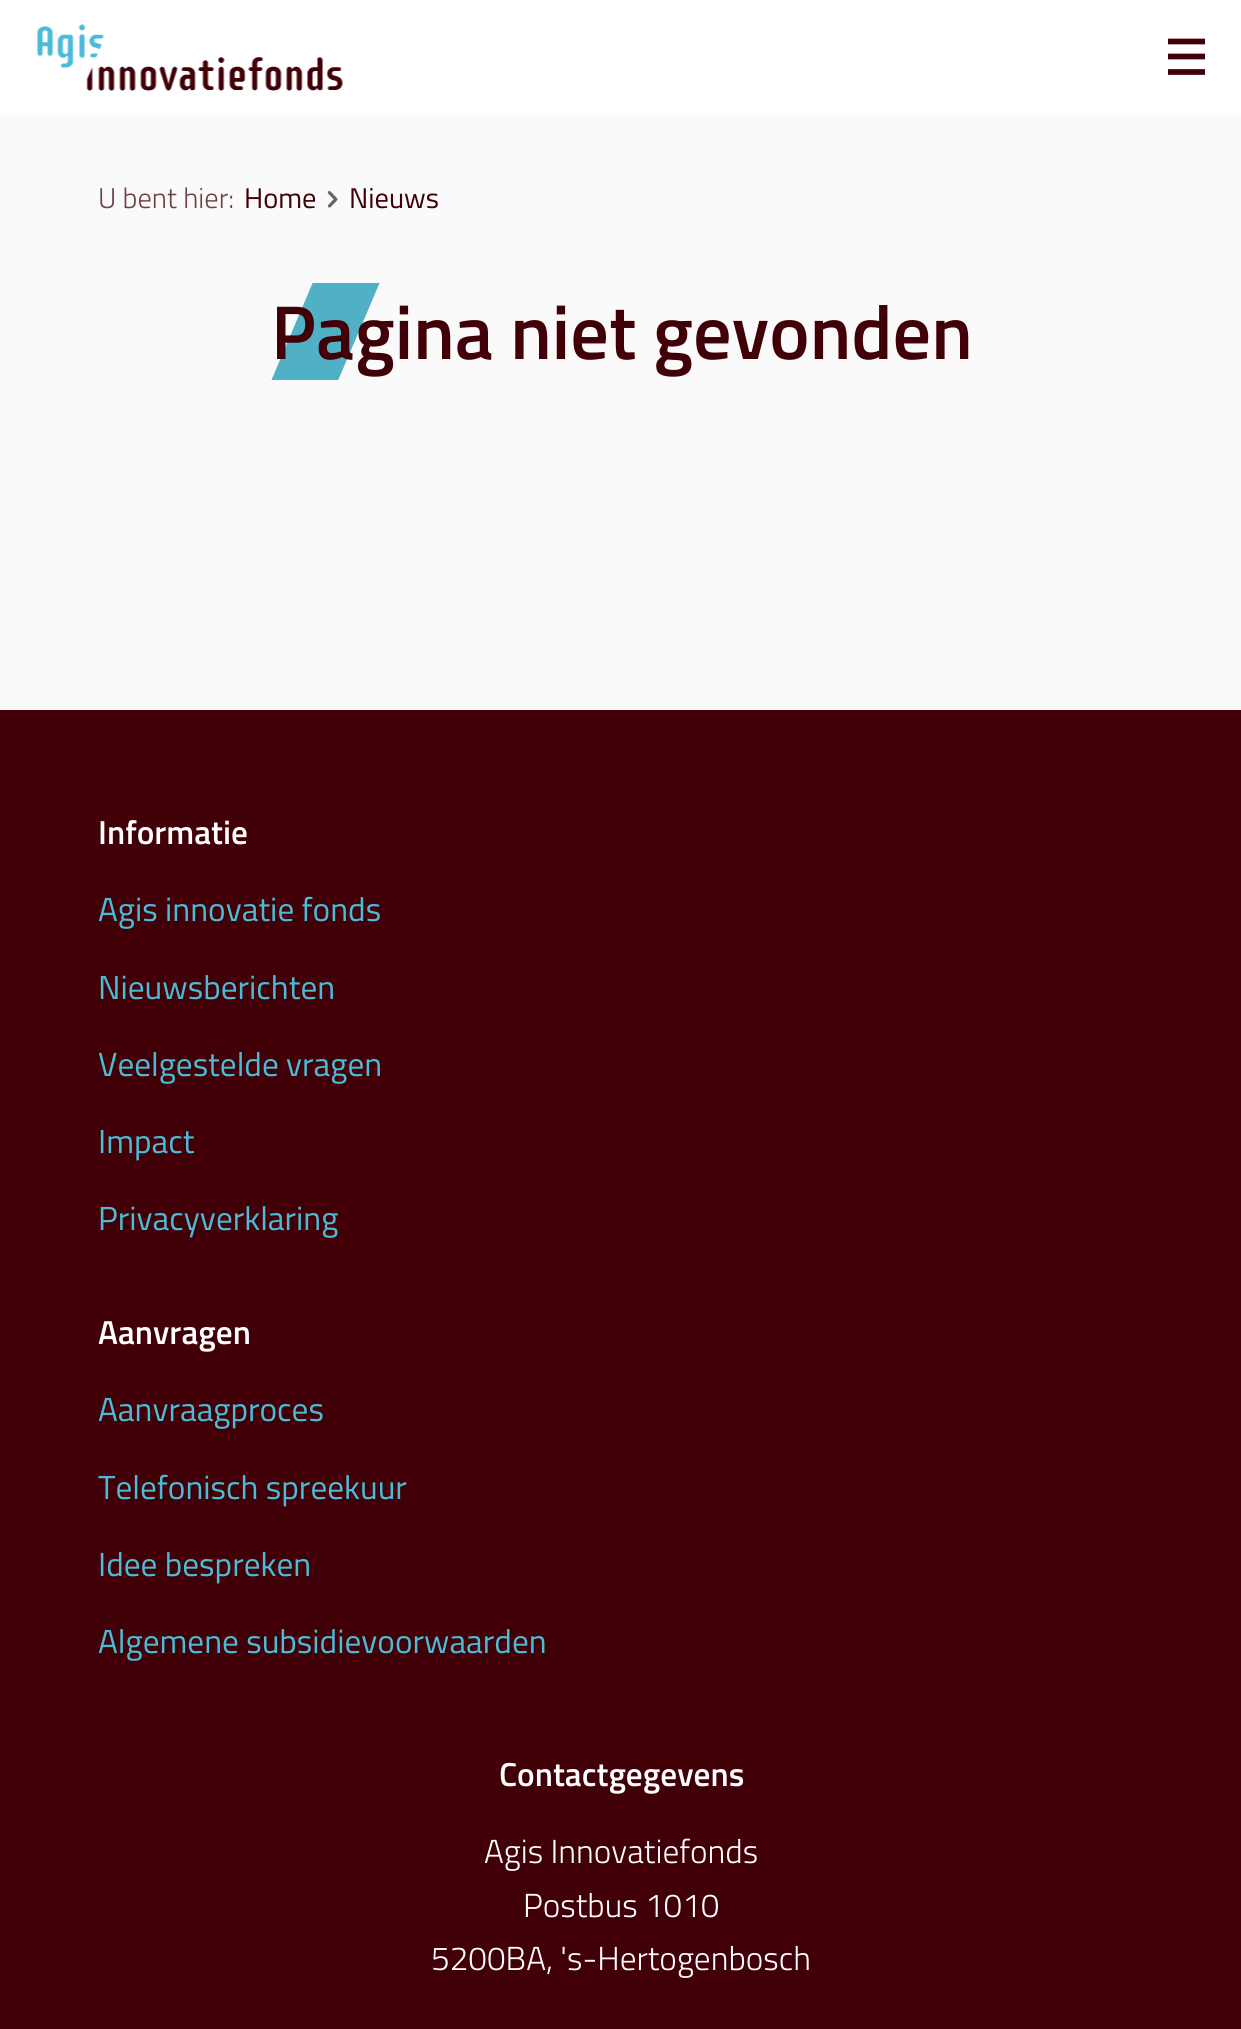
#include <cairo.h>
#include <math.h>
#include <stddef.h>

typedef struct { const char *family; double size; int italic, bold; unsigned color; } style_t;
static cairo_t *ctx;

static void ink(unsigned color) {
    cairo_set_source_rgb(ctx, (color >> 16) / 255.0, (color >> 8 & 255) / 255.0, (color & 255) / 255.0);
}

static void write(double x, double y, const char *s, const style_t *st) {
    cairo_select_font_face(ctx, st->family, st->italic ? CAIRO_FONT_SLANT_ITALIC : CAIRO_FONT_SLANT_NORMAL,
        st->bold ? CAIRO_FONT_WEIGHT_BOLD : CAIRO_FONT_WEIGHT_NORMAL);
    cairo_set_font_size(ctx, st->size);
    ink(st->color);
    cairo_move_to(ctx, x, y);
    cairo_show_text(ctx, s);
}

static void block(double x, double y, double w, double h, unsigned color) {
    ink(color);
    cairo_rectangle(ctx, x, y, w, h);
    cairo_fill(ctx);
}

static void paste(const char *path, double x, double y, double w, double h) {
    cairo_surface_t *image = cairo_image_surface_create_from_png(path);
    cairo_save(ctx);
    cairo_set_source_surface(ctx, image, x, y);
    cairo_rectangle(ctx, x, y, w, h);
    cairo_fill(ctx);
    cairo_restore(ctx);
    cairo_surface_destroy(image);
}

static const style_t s1 = {"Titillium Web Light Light", 28.5, 0, 0, 0x6f3f44};
static const style_t s2 = {"Titillium Web", 28.5, 0, 0, 0x410007};
static const style_t s3 = {"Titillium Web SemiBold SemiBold", 76.25, 0, 0, 0x410007};
static const style_t s4 = {"Titillium Web SemiBold SemiBold", 33.3, 0, 0, 0xffffff};
static const style_t s5 = {"Titillium Web", 33.3, 0, 0, 0x4bbcd8};
static const style_t s6 = {"Titillium Web Light Light", 33.3, 0, 0, 0xffffff};

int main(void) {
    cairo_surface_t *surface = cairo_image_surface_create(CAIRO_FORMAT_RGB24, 1241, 2029);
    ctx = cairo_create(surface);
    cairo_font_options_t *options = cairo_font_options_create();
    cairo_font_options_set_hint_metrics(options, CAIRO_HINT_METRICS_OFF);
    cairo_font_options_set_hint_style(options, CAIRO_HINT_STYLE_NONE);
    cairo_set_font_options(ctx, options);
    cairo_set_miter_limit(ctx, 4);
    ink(0xfafafa);
    cairo_paint(ctx);
    block(0, 0, 1241, 115, 0xffffff);
    paste("pic1.png", 37, 24, 306, 67);
    cairo_save(ctx);
    cairo_rectangle(ctx, 1168, 38, 37, 37);
    cairo_clip(ctx);
    cairo_new_path(ctx);
    cairo_move_to(ctx, 1167.5, 41.5);
    cairo_line_to(ctx, 1205.5, 41.5);
    cairo_move_to(ctx, 1167.5, 56.5);
    cairo_line_to(ctx, 1205.5, 56.5);
    cairo_move_to(ctx, 1167.5, 72);
    cairo_line_to(ctx, 1205.5, 72);
    ink(0x410007);
    cairo_set_line_width(ctx, 5.7);
    cairo_stroke(ctx);
    cairo_restore(ctx);
    write(98, 208, "U bent hier:", &s1);
    write(244, 208, "Home", &s2);
    paste("pic2.png", 327, 191, 11, 17);
    write(349, 208, "Nieuws", &s2);
    cairo_save(ctx);
    cairo_rectangle(ctx, 270, 283, 173, 97);
    cairo_clip(ctx);
    ink(0x50b0c6);
    cairo_new_path(ctx);
    cairo_move_to(ctx, 213, 519);
    cairo_line_to(ctx, 279, 519);
    cairo_line_to(ctx, 380, 282);
    cairo_line_to(ctx, 313, 282);
    cairo_line_to(ctx, 213, 518);
    cairo_close_path(ctx);
    cairo_fill(ctx);
    cairo_restore(ctx);
    write(271, 359, "Pagina niet gevonden", &s3);
    block(0, 710, 1241, 1319, 0x410007);
    write(98, 844, "Informatie", &s4);
    write(98, 921, "Agis innovatie fonds", &s5);
    write(98, 999, "Nieuwsberichten", &s5);
    write(98, 1076, "Veelgestelde vragen", &s5);
    write(98, 1153, "Impact", &s5);
    write(98, 1230, "Privacyverklaring", &s5);
    write(98, 1344, "Aanvragen", &s4);
    write(98, 1421, "Aanvraagproces", &s5);
    write(98, 1499, "Telefonisch spreekuur", &s5);
    write(98, 1576, "Idee bespreken", &s5);
    write(98, 1653, "Algemene subsidievoorwaarden", &s5);
    write(499, 1786, "Contactgegevens", &s4);
    write(484, 1863, "Agis Innovatiefonds", &s6);
    write(523, 1917, "Postbus 1010", &s6);
    write(431, 1970, "5200BA, 's-Hertogenbosch", &s6);
    cairo_surface_write_to_png(surface, "screenshot.png");
    cairo_font_options_destroy(options);
    cairo_destroy(ctx);
    cairo_surface_destroy(surface);
    return 0;
}
